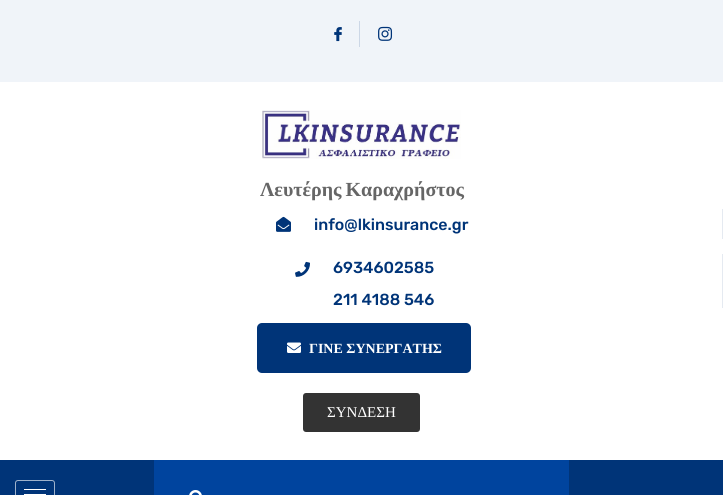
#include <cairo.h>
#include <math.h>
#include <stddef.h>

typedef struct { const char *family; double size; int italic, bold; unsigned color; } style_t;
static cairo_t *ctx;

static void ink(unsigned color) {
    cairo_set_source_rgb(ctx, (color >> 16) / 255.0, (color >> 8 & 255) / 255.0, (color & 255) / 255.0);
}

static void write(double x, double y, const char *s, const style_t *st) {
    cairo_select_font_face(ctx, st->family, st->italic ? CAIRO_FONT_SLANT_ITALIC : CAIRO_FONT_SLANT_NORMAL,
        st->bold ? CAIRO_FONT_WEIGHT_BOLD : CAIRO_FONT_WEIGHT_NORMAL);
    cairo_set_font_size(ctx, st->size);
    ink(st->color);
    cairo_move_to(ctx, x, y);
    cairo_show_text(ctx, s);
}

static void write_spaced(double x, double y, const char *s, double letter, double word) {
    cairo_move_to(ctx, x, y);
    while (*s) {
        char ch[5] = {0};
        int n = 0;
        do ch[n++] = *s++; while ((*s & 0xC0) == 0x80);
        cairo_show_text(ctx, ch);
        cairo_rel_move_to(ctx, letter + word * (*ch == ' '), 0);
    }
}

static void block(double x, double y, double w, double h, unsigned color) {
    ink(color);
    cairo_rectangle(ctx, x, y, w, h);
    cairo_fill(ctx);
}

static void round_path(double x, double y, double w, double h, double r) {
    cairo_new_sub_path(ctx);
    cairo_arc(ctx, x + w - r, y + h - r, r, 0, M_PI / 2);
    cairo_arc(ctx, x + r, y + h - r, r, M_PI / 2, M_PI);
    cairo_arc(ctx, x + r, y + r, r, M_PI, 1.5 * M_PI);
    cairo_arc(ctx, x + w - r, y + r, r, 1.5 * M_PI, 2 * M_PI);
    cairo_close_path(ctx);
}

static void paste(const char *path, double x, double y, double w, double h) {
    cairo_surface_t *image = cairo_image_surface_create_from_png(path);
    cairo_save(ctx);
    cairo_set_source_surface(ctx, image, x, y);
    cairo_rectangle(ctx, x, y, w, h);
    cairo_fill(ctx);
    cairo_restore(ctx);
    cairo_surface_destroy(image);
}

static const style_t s1 = {"Rubik Medium", 16, 0, 0, 0x003478};
static const style_t s2 = {"Liberation Serif", 14, 0, 1, 0xffffff};
static const style_t s3 = {"Liberation Serif", 15, 0, 0, 0xffffff};

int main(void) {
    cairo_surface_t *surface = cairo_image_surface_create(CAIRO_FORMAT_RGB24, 723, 495);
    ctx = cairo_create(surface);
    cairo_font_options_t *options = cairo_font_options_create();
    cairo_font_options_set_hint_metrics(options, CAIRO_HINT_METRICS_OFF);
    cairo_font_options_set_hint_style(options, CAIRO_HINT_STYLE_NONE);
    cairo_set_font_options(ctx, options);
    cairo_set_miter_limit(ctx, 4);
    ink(0xffffff);
    cairo_paint(ctx);
    block(0, 0, 723, 82, 0xf0f4f9);
    block(359, 21, 1, 26, 0xccd7e6);
    paste("pic1.png", 334, 27, 8, 15);
    paste("pic2.png", 378, 26, 15, 15);
    paste("pic3.png", 262, 110, 199, 49);
    cairo_select_font_face(ctx, "Liberation Serif", CAIRO_FONT_SLANT_NORMAL, CAIRO_FONT_WEIGHT_BOLD);
    cairo_set_font_size(ctx, 20);
    ink(0x666666);
    write_spaced(260, 196, "Λευτέρης Καραχρήστος", 0, -1);
    block(722, 209, 1, 30, 0xe5eaf1);
    paste("pic4.png", 276, 216, 15, 16);
    write(314, 230, "info@lkinsurance.gr", &s1);
    block(722, 254, 1, 54, 0xe5eaf1);
    paste("pic5.png", 295, 261, 15, 16);
    write(333, 273, "6934602585", &s1);
    write(333, 305, "211 4188 546", &s1);
    round_path(257, 323, 214, 50, 5);
    cairo_fill(ctx);
    paste("pic6.png", 287, 342, 14, 11);
    write(309, 353, "ΓΙΝΕ ΣΥΝΕΡΓΑΤΗΣ", &s2);
    ink(0x333333);
    round_path(303, 393, 117, 39, 3);
    cairo_fill(ctx);
    write(327, 417, "ΣΥΝΔΕΣΗ", &s3);
    block(0, 460, 723, 35, 0x003478);
    round_path(15.5, 480.5, 39, 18, 2.5);
    ink(0x9eb2cc);
    cairo_set_line_width(ctx, 1);
    cairo_stroke(ctx);
    block(24, 489, 22, 1, 0xffffff);
    block(24, 494, 22, 1, 0xffffff);
    block(154, 460, 415, 35, 0x00449e);
    paste("pic7.png", 189, 490, 13, 5);
    cairo_surface_write_to_png(surface, "screenshot.png");
    cairo_font_options_destroy(options);
    cairo_destroy(ctx);
    cairo_surface_destroy(surface);
    return 0;
}
